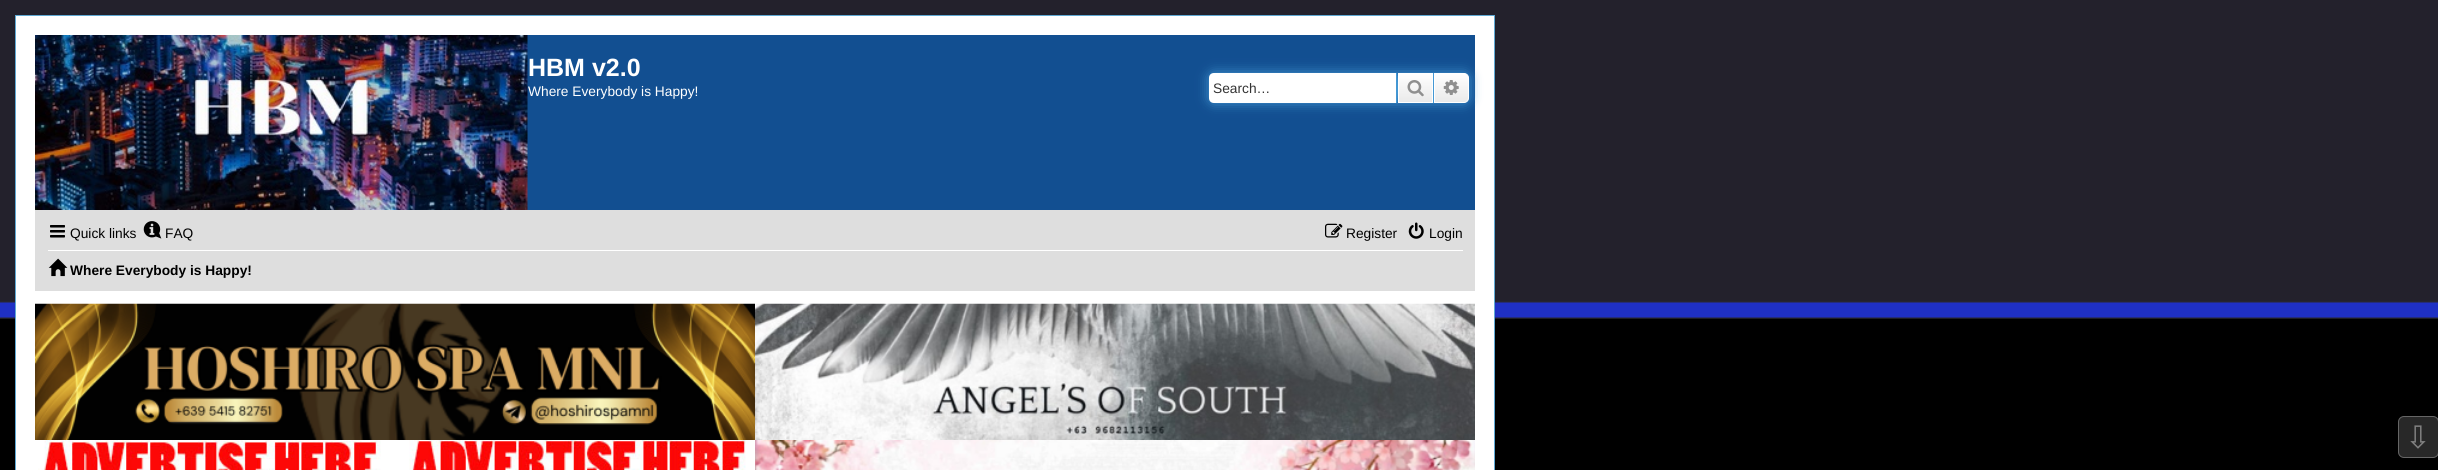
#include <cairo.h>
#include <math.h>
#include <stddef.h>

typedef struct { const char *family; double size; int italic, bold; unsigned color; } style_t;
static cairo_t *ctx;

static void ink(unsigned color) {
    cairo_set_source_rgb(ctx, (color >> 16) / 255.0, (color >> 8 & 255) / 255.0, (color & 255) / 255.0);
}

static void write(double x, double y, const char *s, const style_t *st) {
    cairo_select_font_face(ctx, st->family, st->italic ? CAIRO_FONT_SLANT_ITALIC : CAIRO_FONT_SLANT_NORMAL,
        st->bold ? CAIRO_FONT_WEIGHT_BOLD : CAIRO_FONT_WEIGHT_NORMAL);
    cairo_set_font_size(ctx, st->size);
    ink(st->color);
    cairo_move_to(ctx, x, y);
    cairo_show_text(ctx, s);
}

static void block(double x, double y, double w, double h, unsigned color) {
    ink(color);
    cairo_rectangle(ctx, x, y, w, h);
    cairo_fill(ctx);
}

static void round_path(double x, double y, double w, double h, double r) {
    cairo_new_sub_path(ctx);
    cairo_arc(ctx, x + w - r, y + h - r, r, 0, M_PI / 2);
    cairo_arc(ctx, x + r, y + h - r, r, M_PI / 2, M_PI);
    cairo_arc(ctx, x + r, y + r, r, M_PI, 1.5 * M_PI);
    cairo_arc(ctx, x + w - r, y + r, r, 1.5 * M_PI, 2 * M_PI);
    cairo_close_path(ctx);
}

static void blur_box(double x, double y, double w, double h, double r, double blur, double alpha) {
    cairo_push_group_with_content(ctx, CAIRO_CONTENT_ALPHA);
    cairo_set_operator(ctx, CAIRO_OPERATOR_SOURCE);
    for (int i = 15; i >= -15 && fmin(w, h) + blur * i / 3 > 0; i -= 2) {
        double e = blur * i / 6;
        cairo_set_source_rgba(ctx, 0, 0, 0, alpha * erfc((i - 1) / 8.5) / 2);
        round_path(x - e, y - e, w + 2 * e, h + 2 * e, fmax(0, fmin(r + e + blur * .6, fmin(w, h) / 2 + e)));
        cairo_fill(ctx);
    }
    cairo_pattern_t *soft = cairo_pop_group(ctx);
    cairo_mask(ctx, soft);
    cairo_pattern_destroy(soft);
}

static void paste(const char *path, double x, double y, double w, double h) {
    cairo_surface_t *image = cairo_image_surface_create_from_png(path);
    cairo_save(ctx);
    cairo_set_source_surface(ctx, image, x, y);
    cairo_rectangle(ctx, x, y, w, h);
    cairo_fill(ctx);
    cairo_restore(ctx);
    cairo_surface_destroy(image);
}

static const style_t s1 = {"Liberation Sans", 25, 0, 1, 0xffffff};
static const style_t s2 = {"Liberation Sans", 13.75, 0, 0, 0xffffff};
static const style_t s3 = {"Liberation Sans", 13.75, 0, 0, 0x333333};
static const style_t s4 = {"Liberation Sans", 13.75, 0, 0, 0x000000};
static const style_t s5 = {"Liberation Sans", 13.75, 0, 1, 0x000000};
static const style_t s6 = {"DejaVu Sans", 31, 0, 0, 0x808080};

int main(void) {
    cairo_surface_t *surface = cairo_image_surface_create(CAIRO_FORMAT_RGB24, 2438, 470);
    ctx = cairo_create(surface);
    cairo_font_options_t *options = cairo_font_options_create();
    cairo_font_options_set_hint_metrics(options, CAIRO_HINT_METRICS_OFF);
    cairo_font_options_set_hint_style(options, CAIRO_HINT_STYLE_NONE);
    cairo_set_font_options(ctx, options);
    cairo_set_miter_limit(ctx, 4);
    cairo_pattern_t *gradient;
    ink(0x000000);
    cairo_paint(ctx);
    paste("pic1.png", 0, 0, 2438, 319);
    ink(0xffffff);
    cairo_rectangle(ctx, 15.5, 15.5, 1479, 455);
    cairo_fill_preserve(ctx);
    ink(0x5fa8d3);
    cairo_set_line_width(ctx, 1);
    cairo_stroke(ctx);
    block(527, 35, 948, 175, 0x124f91);
    paste("pic2.png", 35, 35, 493, 175);
    write(528, 76, "HBM v2.0", &s1);
    write(528, 96, "Where Everybody is Happy!", &s2);
    ink(0x4498d4);
    blur_box(1209, 73, 260, 30, 5, 6, 1);
    ink(0xffffff);
    cairo_new_path(ctx);
    cairo_move_to(ctx, 1214, 73);
    cairo_line_to(ctx, 1396, 73);
    cairo_line_to(ctx, 1396, 103);
    cairo_line_to(ctx, 1214, 103);
    cairo_curve_to(ctx, 1211, 103, 1209, 101, 1209, 98);
    cairo_line_to(ctx, 1209, 78);
    cairo_curve_to(ctx, 1209, 75, 1211, 73, 1214, 73);
    cairo_close_path(ctx);
    cairo_fill(ctx);
    write(1213, 93, "Search…", &s3);
    gradient = cairo_pattern_create_linear(1415, 73, 1415, 103);
    cairo_pattern_add_color_stop_rgba(gradient, 0, 1, 1, 1, 1);
    cairo_pattern_add_color_stop_rgba(gradient, 1, 0.914, 0.914, 0.914, 1);
    cairo_set_source(ctx, gradient);
    cairo_pattern_destroy(gradient);
    cairo_rectangle(ctx, 1399, 74, 33, 28);
    cairo_fill(ctx);
    cairo_rectangle(ctx, 1398.5, 73.5, 34, 29);
    ink(0xffffff);
    cairo_stroke(ctx);
    block(1433, 73, 1, 30, 0x4498d4);
    block(1396, 73, 1, 30, 0x4498d4);
    paste("pic3.png", 1407, 80, 17, 17);
    gradient = cairo_pattern_create_linear(1451, 73, 1451, 103);
    cairo_pattern_add_color_stop_rgba(gradient, 0, 1, 1, 1, 1);
    cairo_pattern_add_color_stop_rgba(gradient, 1, 0.914, 0.914, 0.914, 1);
    cairo_set_source(ctx, gradient);
    cairo_pattern_destroy(gradient);
    cairo_new_path(ctx);
    cairo_move_to(ctx, 1434.5, 73.5);
    cairo_line_to(ctx, 1464, 73.5);
    cairo_curve_to(ctx, 1466.5, 73.5, 1468.5, 75.5, 1468.5, 78);
    cairo_line_to(ctx, 1468.5, 98);
    cairo_curve_to(ctx, 1468.5, 100.5, 1466.5, 102.5, 1464, 102.5);
    cairo_line_to(ctx, 1434.5, 102.5);
    cairo_close_path(ctx);
    cairo_fill_preserve(ctx);
    ink(0xffffff);
    cairo_stroke(ctx);
    paste("pic4.png", 1443, 80, 16, 15);
    block(35, 210, 1440, 81, 0xdedede);
    paste("pic5.png", 50, 225, 15, 13);
    write(70, 238, "Quick links", &s4);
    paste("pic6.png", 143, 221, 19, 18);
    write(165, 238, "FAQ", &s4);
    paste("pic7.png", 1325, 223, 18, 15);
    write(1346, 238, "Register", &s4);
    paste("pic8.png", 1408, 222, 16, 17);
    write(1429, 238, "Login", &s4);
    block(48, 250, 1415, 1, 0xffffff);
    paste("pic9.png", 48, 258, 20, 19);
    write(70, 275, "Where Everybody is Happy!", &s5);
    paste("pic10.png", 35, 303, 720, 137);
    paste("pic11.png", 755, 303, 720, 137);
    paste("pic12.png", 38, 440, 708, 30);
    paste("pic13.png", 755, 440, 720, 30);
    ink(0x282828);
    round_path(2398.5, 416.5, 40, 41, 5.5);
    cairo_fill_preserve(ctx);
    ink(0x666666);
    cairo_stroke(ctx);
    write(2405, 448, "⇩", &s6);
    cairo_surface_write_to_png(surface, "screenshot.png");
    cairo_font_options_destroy(options);
    cairo_destroy(ctx);
    cairo_surface_destroy(surface);
    return 0;
}
